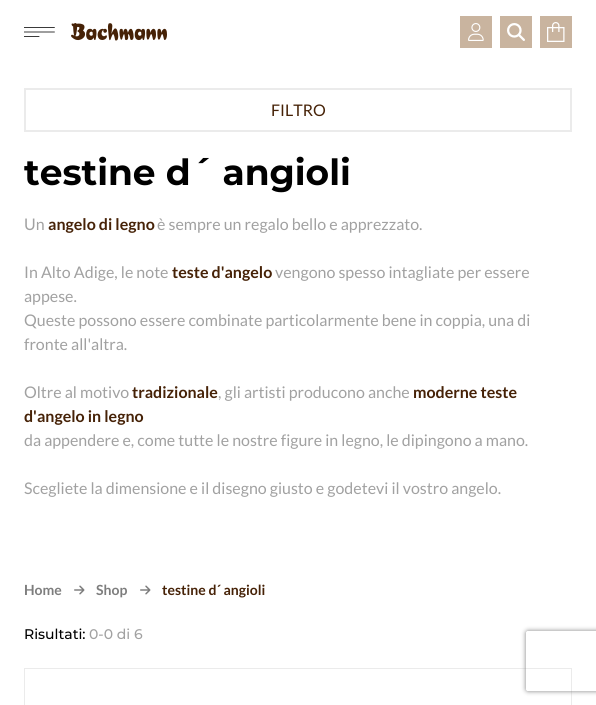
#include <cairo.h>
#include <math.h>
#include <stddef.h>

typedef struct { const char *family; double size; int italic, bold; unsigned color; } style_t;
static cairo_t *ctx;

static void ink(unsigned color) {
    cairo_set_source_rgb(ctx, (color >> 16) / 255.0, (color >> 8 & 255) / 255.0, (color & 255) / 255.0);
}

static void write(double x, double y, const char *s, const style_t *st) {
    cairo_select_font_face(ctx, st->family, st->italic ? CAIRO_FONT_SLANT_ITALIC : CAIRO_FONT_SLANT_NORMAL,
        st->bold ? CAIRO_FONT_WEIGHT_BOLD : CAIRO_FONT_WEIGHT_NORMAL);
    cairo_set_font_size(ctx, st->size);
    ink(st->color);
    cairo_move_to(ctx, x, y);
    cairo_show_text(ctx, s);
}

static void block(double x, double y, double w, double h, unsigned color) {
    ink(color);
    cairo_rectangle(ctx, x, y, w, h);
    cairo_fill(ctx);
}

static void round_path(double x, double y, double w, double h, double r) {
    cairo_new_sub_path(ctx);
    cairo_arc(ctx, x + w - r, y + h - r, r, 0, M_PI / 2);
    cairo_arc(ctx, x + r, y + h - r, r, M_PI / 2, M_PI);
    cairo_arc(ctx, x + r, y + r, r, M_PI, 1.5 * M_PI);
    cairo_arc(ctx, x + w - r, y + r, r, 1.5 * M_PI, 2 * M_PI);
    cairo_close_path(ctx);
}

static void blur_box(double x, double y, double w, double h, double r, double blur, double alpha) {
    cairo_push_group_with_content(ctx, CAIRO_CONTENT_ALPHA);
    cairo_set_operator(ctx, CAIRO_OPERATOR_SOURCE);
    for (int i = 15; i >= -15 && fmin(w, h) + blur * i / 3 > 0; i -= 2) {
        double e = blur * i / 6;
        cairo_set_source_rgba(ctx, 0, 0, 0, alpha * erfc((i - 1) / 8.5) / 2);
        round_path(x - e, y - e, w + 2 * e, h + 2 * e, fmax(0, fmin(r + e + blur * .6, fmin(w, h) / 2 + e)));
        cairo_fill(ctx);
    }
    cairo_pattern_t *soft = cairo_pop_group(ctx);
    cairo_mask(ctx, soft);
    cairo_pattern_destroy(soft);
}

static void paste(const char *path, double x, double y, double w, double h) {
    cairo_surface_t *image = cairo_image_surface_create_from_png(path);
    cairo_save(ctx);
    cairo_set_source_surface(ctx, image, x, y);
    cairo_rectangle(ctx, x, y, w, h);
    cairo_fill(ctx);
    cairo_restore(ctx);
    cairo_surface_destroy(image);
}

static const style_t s1 = {"Lato", 16, 0, 0, 0x462207};
static const style_t s2 = {"Montserrat", 36, 0, 1, 0x000000};
static const style_t s3 = {"Lato", 16, 0, 0, 0xa1a1a1};
static const style_t s4 = {"Lato", 16, 0, 1, 0x462207};
static const style_t s5 = {"Lato", 14, 0, 1, 0x7d7d7d};
static const style_t s6 = {"Lato", 14, 0, 1, 0x462207};
static const style_t s7 = {"Montserrat Medium", 14, 0, 0, 0x000000};
static const style_t s8 = {"Montserrat Medium", 14, 0, 0, 0xa1a1a1};

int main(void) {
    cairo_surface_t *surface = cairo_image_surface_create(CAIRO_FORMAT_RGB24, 596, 705);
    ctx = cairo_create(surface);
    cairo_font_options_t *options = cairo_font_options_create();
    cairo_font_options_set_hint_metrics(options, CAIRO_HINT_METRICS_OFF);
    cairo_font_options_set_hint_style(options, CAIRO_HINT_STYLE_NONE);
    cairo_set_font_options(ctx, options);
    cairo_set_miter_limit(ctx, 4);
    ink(0xffffff);
    cairo_paint(ctx);
    paste("pic1.png", 24, 27, 31, 10);
    paste("pic2.png", 71, 23, 96, 18);
    block(460, 16, 32, 32, 0xc9b49f);
    paste("pic3.png", 468, 23, 16, 18);
    block(500, 16, 32, 32, 0xc9b49f);
    paste("pic4.png", 507, 23, 18, 18);
    block(540, 16, 32, 32, 0xc9b49f);
    paste("pic5.png", 547, 22, 18, 20);
    cairo_rectangle(ctx, 25, 89, 546, 42);
    ink(0xebebeb);
    cairo_stroke(ctx);
    write(271, 116, "FILTRO", &s1);
    write(24, 185, "testine d´ angioli", &s2);
    write(24, 230, "Un", &s3);
    write(48, 230, "angelo di legno", &s4);
    write(157, 230, "è sempre un regalo bello e apprezzato.", &s3);
    write(24, 278, "In Alto Adige, le note", &s3);
    write(172, 278, "teste d'angelo", &s4);
    write(275, 278, "vengono spesso intagliate per essere", &s3);
    write(24, 302, "appese.", &s3);
    write(24, 326, "Queste possono essere combinate particolarmente bene in coppia, una di", &s3);
    write(24, 350, "fronte all'altra.", &s3);
    write(24, 398, "Oltre al motivo", &s3);
    write(132, 398, "tradizionale", &s4);
    write(218, 398, ", gli artisti producono anche", &s3);
    write(413, 398, "moderne teste", &s4);
    write(24, 422, "d'angelo in legno", &s4);
    write(24, 446, "da appendere e, come tutte le nostre figure in legno, le dipingono a mano.", &s3);
    write(24, 494, "Scegliete la dimensione e il disegno giusto e godetevi il vostro angelo.", &s3);
    write(24, 595, "Home", &s5);
    paste("pic6.png", 74, 585, 11, 10);
    write(96, 595, "Shop", &s5);
    paste("pic6.png", 140, 585, 11, 10);
    write(162, 595, "testine d´ angioli", &s6);
    write(24, 639, "Risultati:", &s7);
    write(89, 639, "0-0 di 6", &s8);
    cairo_rectangle(ctx, 24.5, 668.5, 547, 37);
    ink(0xebebeb);
    cairo_set_line_width(ctx, 1);
    cairo_stroke(ctx);
    cairo_save(ctx);
    cairo_set_fill_rule(ctx, CAIRO_FILL_RULE_EVEN_ODD);
    cairo_new_path(ctx);
    cairo_move_to(ctx, 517, 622);
    cairo_line_to(ctx, 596, 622);
    cairo_line_to(ctx, 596, 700);
    cairo_line_to(ctx, 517, 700);
    cairo_close_path(ctx);
    cairo_move_to(ctx, 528, 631);
    cairo_line_to(ctx, 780, 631);
    cairo_curve_to(ctx, 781, 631, 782, 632, 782, 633);
    cairo_line_to(ctx, 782, 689);
    cairo_curve_to(ctx, 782, 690, 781, 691, 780, 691);
    cairo_line_to(ctx, 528, 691);
    cairo_curve_to(ctx, 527, 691, 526, 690, 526, 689);
    cairo_line_to(ctx, 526, 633);
    cairo_curve_to(ctx, 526, 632, 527, 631, 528, 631);
    cairo_close_path(ctx);
    cairo_clip(ctx);
    ink(0x808080);
    blur_box(526, 631, 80, 60, 2, 2.5, 1);
    cairo_restore(ctx);
    cairo_surface_write_to_png(surface, "screenshot.png");
    cairo_font_options_destroy(options);
    cairo_destroy(ctx);
    cairo_surface_destroy(surface);
    return 0;
}
